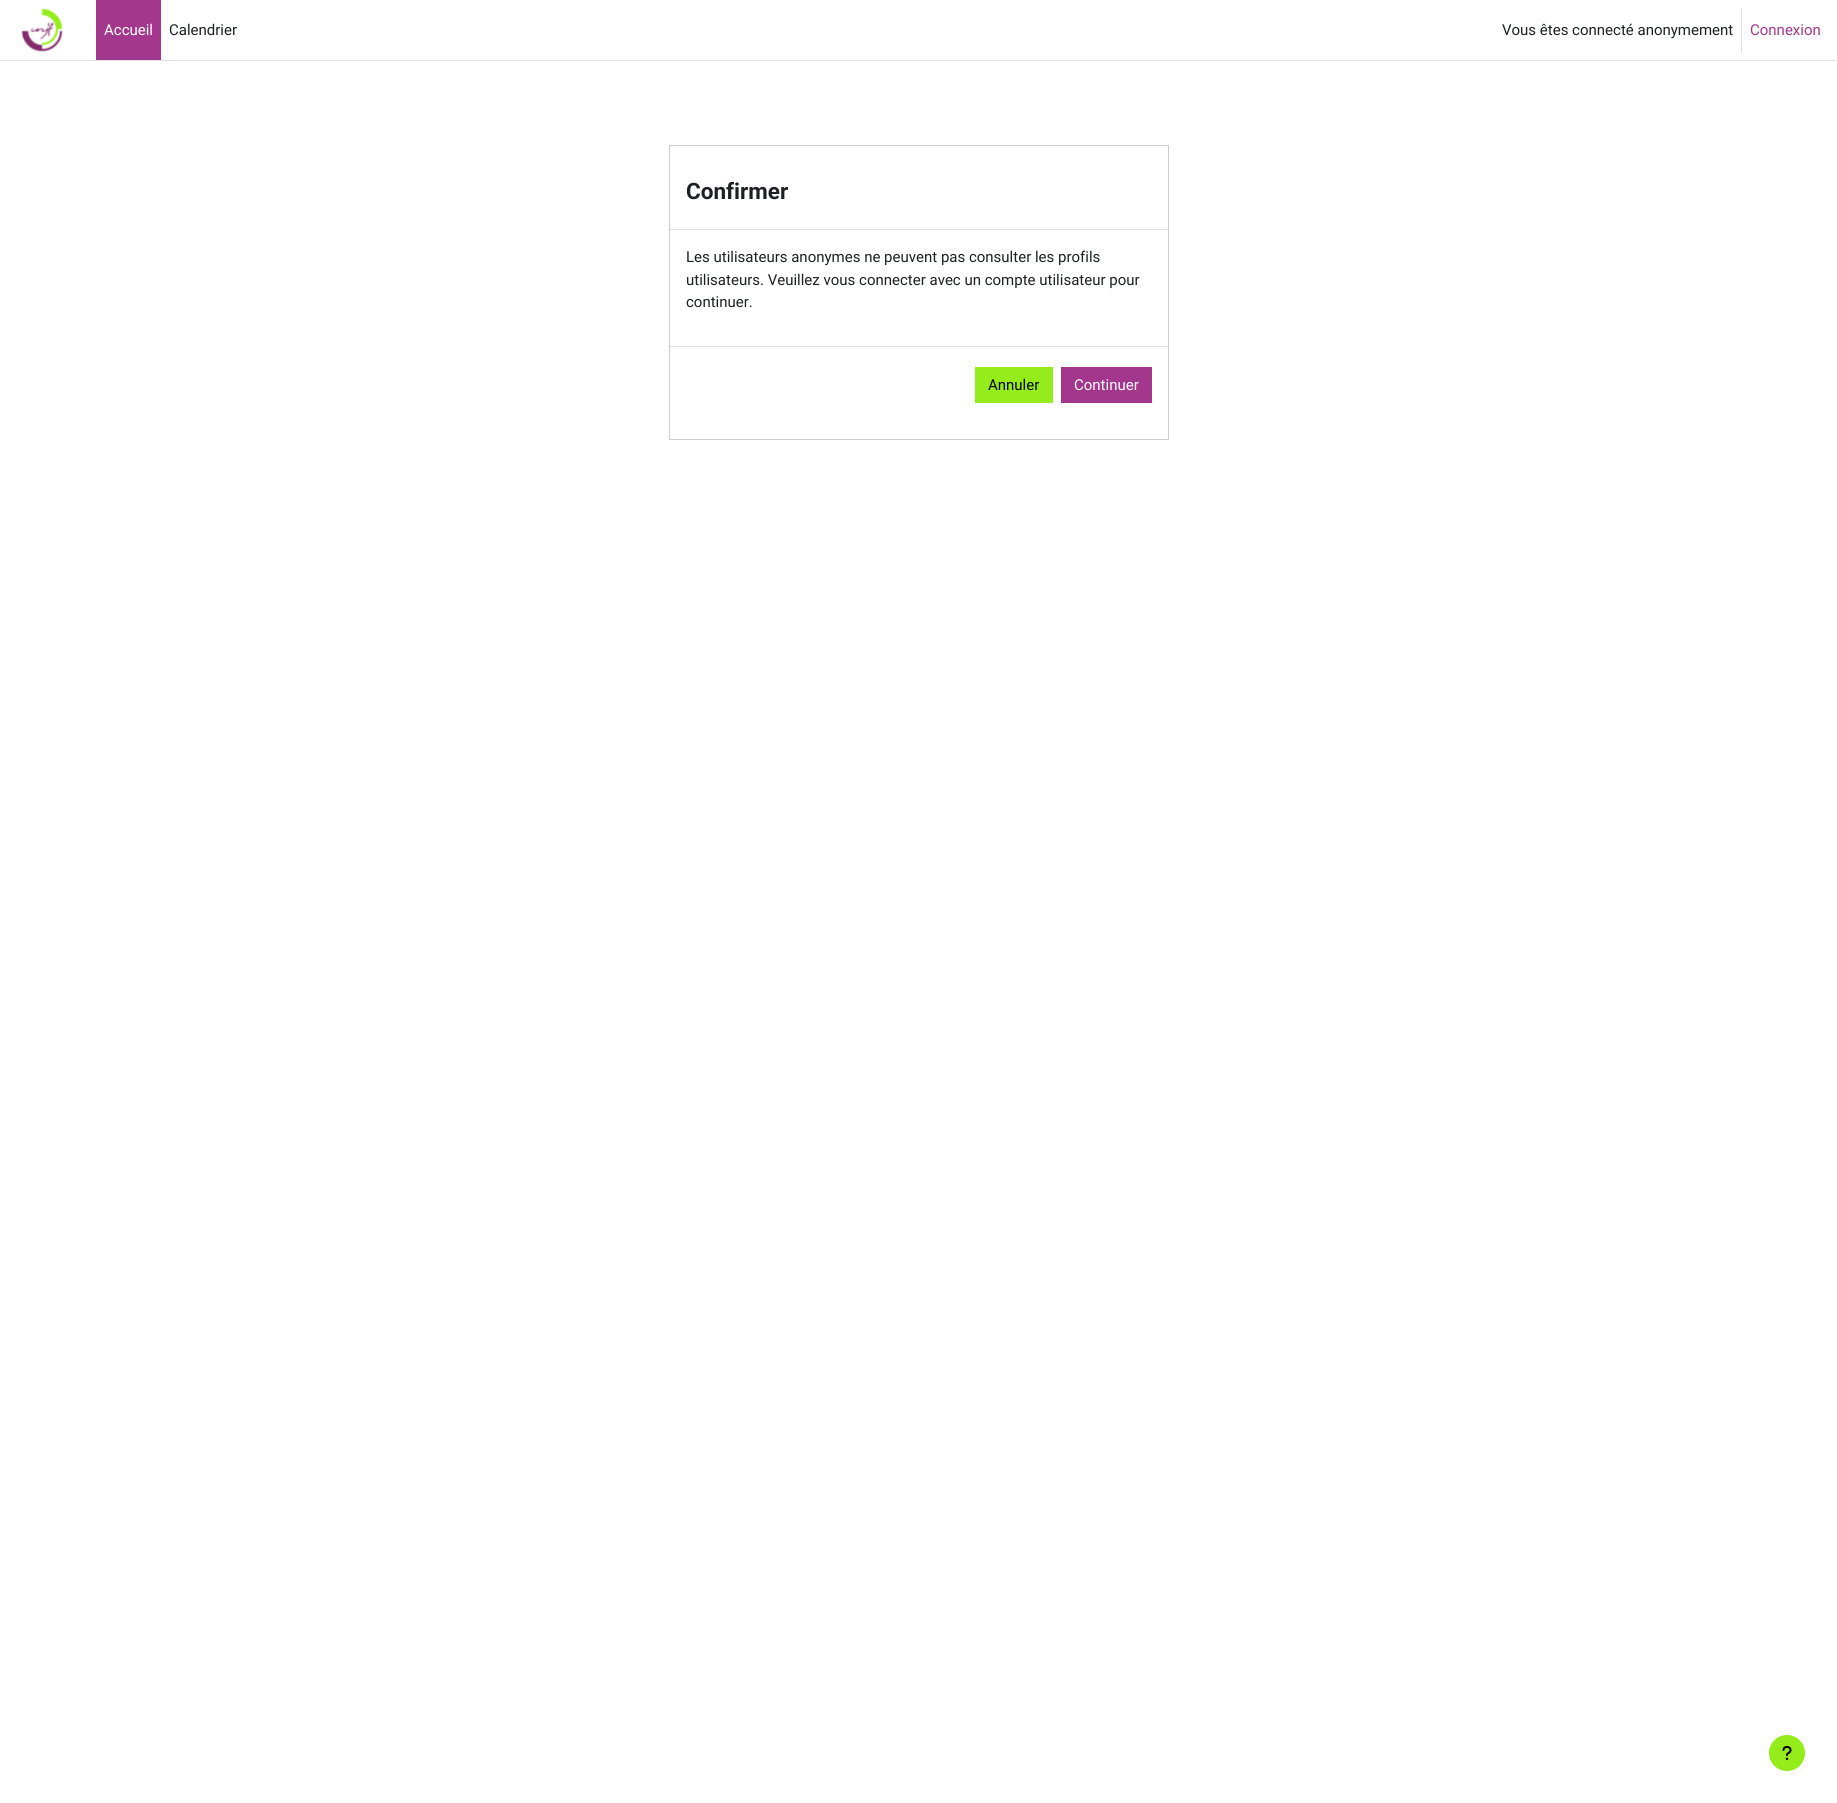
#include <cairo.h>
#include <math.h>
#include <stddef.h>

typedef struct { const char *family; double size; int italic, bold; unsigned color; } style_t;
static cairo_t *ctx;

static void ink(unsigned color) {
    cairo_set_source_rgb(ctx, (color >> 16) / 255.0, (color >> 8 & 255) / 255.0, (color & 255) / 255.0);
}

static void write(double x, double y, const char *s, const style_t *st) {
    cairo_select_font_face(ctx, st->family, st->italic ? CAIRO_FONT_SLANT_ITALIC : CAIRO_FONT_SLANT_NORMAL,
        st->bold ? CAIRO_FONT_WEIGHT_BOLD : CAIRO_FONT_WEIGHT_NORMAL);
    cairo_set_font_size(ctx, st->size);
    ink(st->color);
    cairo_move_to(ctx, x, y);
    cairo_show_text(ctx, s);
}

static void block(double x, double y, double w, double h, unsigned color) {
    ink(color);
    cairo_rectangle(ctx, x, y, w, h);
    cairo_fill(ctx);
}

static void paste(const char *path, double x, double y, double w, double h) {
    cairo_surface_t *image = cairo_image_surface_create_from_png(path);
    cairo_save(ctx);
    cairo_set_source_surface(ctx, image, x, y);
    cairo_rectangle(ctx, x, y, w, h);
    cairo_fill(ctx);
    cairo_restore(ctx);
    cairo_surface_destroy(image);
}

static const style_t s1 = {"Roboto", 15, 0, 0, 0xffffff};
static const style_t s2 = {"Roboto", 15, 0, 0, 0x1d2125};
static const style_t s3 = {"Roboto", 15, 0, 0, 0xa3378d};
static const style_t s4 = {"Roboto", 22.5, 0, 1, 0x1d2125};
static const style_t s5 = {"Roboto", 15, 0, 0, 0x000000};

int main(void) {
    cairo_surface_t *surface = cairo_image_surface_create(CAIRO_FORMAT_RGB24, 1837, 1803);
    ctx = cairo_create(surface);
    cairo_font_options_t *options = cairo_font_options_create();
    cairo_font_options_set_hint_metrics(options, CAIRO_HINT_METRICS_OFF);
    cairo_font_options_set_hint_style(options, CAIRO_HINT_STYLE_NONE);
    cairo_set_font_options(ctx, options);
    cairo_set_miter_limit(ctx, 4);
    ink(0xffffff);
    cairo_paint(ctx);
    block(0, 60, 1837, 1, 0xdee2e6);
    paste("pic1.png", 21, 8, 42, 44);
    block(96, 0, 65, 60, 0xa3378d);
    write(104, 35, "Accueil", &s1);
    write(169, 35, "Calendrier", &s2);
    write(1502, 35, "Vous êtes connecté anonymement", &s2);
    block(1741, 8, 1, 45, 0xdee2e6);
    write(1750, 35, "Connexion", &s3);
    cairo_rectangle(ctx, 669.5, 145.5, 499, 294);
    ink(0xcccccc);
    cairo_set_line_width(ctx, 1);
    cairo_stroke(ctx);
    block(670, 229, 498, 1, 0xdee2e6);
    write(686, 199, "Confirmer", &s4);
    write(686, 262, "Les utilisateurs anonymes ne peuvent pas consulter les profils", &s2);
    write(686, 285, "utilisateurs. Veuillez vous connecter avec un compte utilisateur pour", &s2);
    write(686, 307, "continuer.", &s2);
    block(670, 346, 498, 1, 0xdee2e6);
    block(975, 367, 78, 36, 0x94ed1b);
    write(988, 390, "Annuler", &s5);
    block(1061, 367, 91, 36, 0xa3378d);
    write(1074, 390, "Continuer", &s1);
    ink(0x94ed1b);
    cairo_new_path(ctx);
    cairo_arc(ctx, 1787, 1753, 18, 0, 2 * M_PI);
    cairo_fill(ctx);
    paste("pic2.png", 1782, 1746, 10, 14);
    cairo_surface_write_to_png(surface, "screenshot.png");
    cairo_font_options_destroy(options);
    cairo_destroy(ctx);
    cairo_surface_destroy(surface);
    return 0;
}
